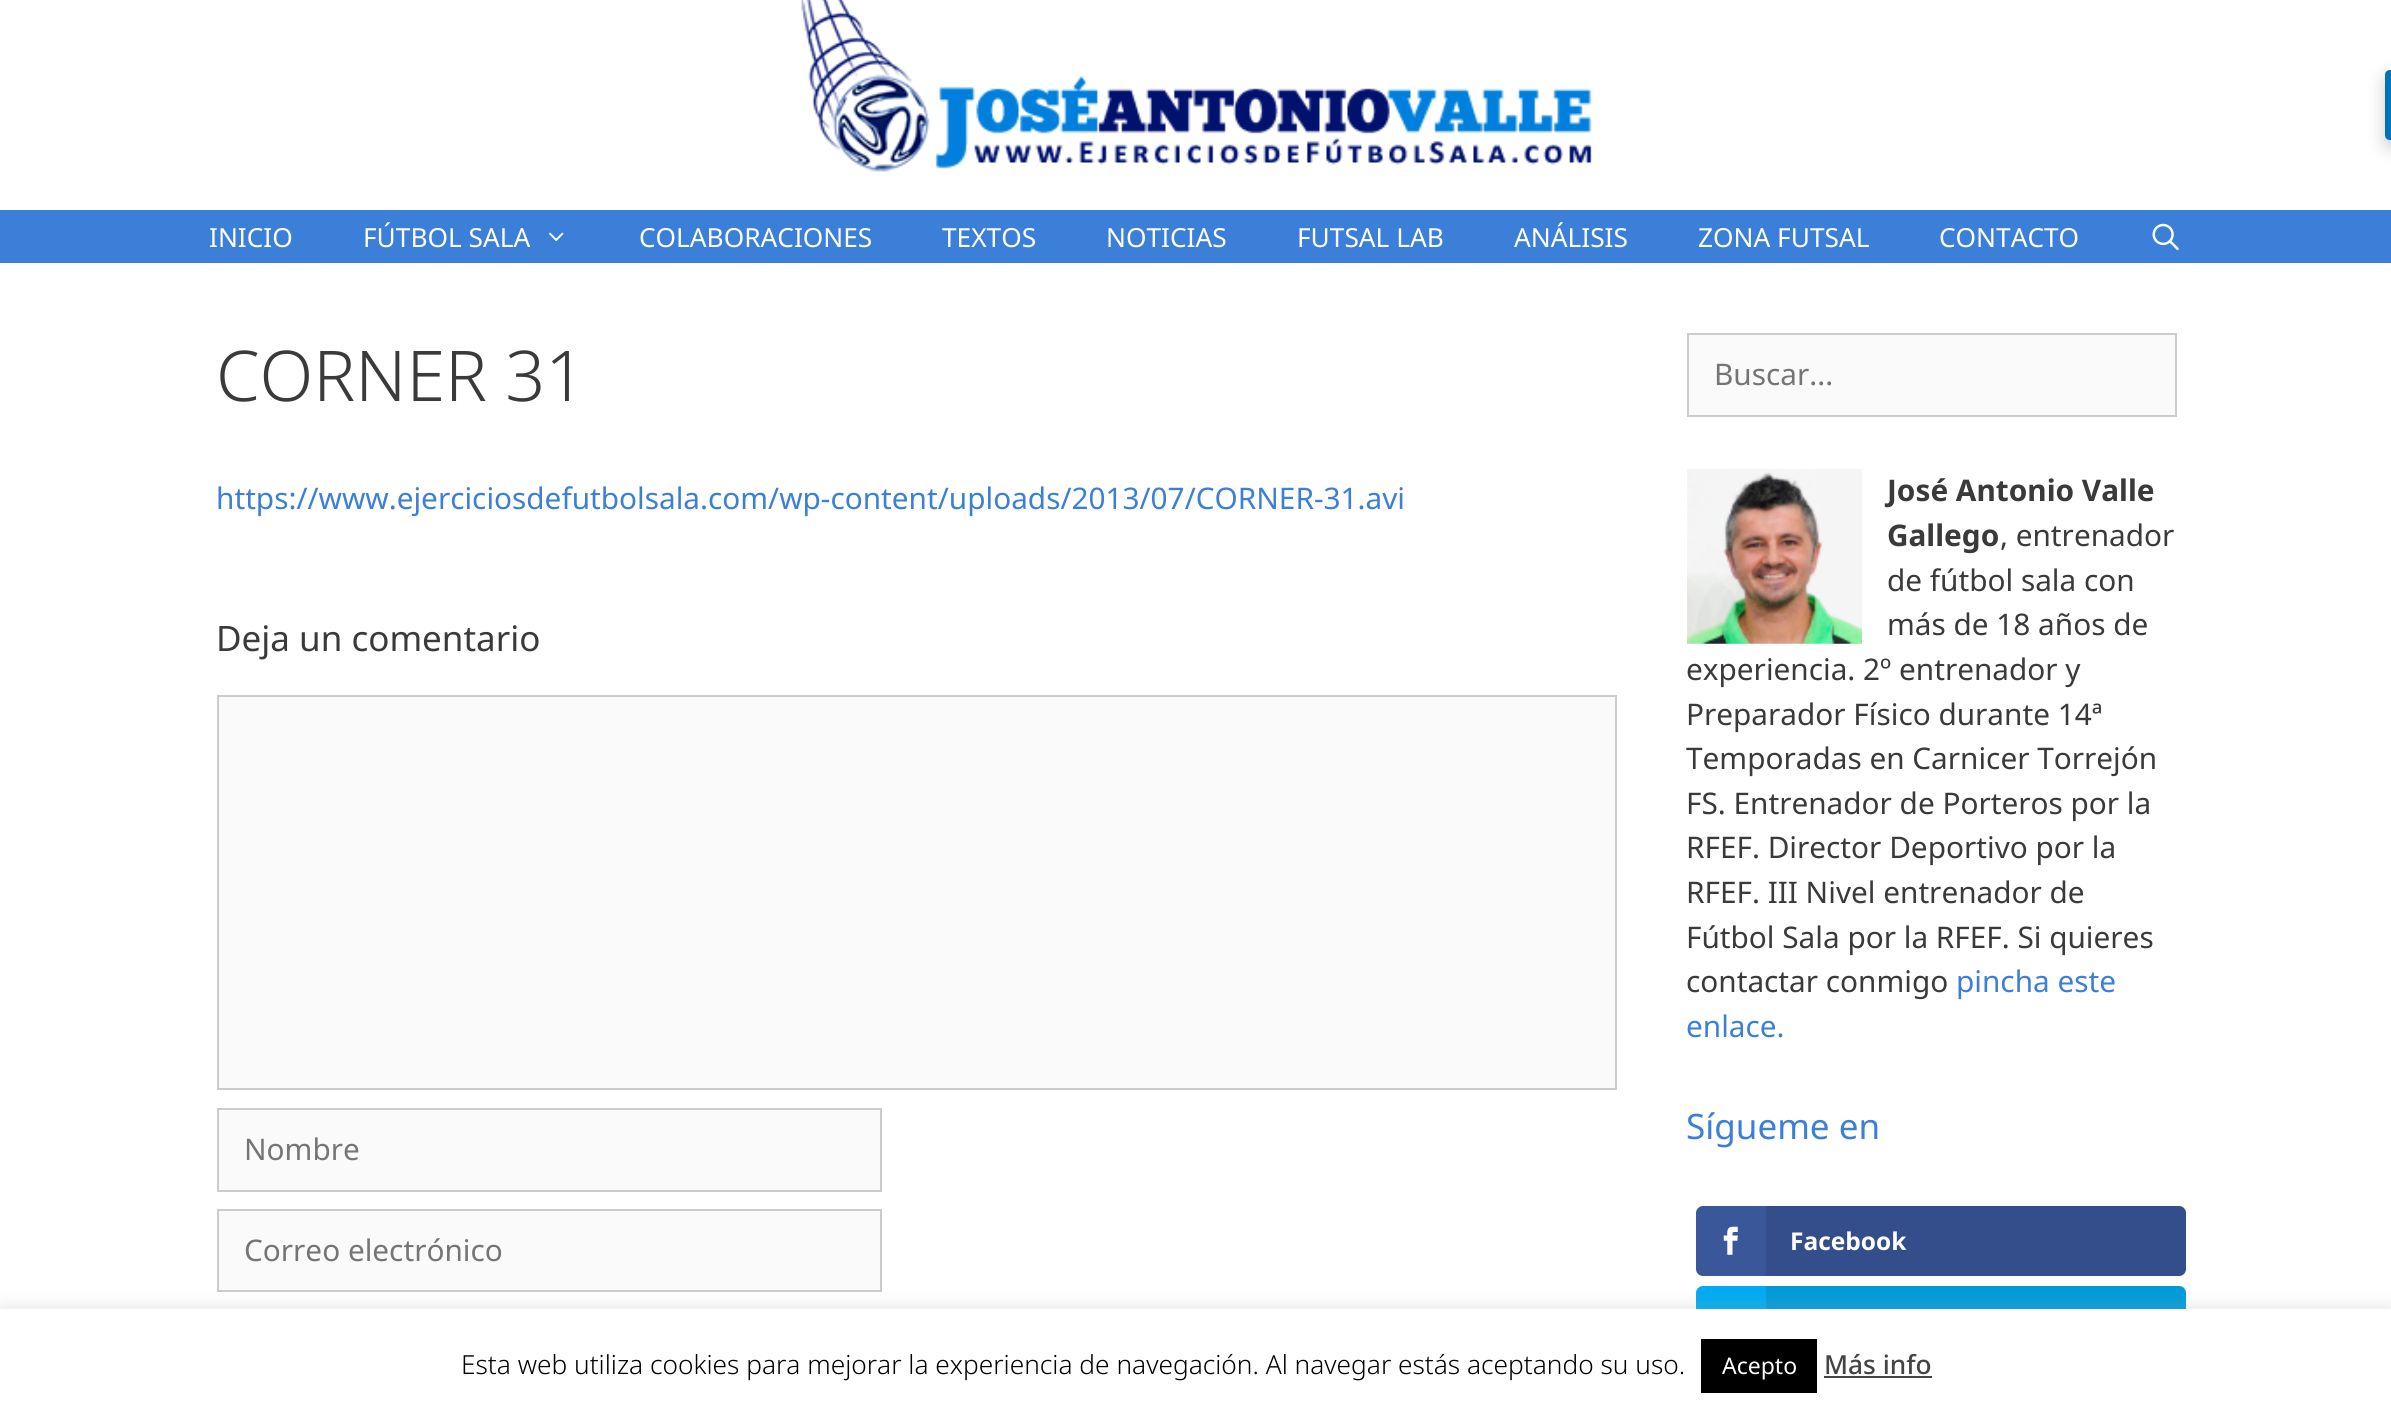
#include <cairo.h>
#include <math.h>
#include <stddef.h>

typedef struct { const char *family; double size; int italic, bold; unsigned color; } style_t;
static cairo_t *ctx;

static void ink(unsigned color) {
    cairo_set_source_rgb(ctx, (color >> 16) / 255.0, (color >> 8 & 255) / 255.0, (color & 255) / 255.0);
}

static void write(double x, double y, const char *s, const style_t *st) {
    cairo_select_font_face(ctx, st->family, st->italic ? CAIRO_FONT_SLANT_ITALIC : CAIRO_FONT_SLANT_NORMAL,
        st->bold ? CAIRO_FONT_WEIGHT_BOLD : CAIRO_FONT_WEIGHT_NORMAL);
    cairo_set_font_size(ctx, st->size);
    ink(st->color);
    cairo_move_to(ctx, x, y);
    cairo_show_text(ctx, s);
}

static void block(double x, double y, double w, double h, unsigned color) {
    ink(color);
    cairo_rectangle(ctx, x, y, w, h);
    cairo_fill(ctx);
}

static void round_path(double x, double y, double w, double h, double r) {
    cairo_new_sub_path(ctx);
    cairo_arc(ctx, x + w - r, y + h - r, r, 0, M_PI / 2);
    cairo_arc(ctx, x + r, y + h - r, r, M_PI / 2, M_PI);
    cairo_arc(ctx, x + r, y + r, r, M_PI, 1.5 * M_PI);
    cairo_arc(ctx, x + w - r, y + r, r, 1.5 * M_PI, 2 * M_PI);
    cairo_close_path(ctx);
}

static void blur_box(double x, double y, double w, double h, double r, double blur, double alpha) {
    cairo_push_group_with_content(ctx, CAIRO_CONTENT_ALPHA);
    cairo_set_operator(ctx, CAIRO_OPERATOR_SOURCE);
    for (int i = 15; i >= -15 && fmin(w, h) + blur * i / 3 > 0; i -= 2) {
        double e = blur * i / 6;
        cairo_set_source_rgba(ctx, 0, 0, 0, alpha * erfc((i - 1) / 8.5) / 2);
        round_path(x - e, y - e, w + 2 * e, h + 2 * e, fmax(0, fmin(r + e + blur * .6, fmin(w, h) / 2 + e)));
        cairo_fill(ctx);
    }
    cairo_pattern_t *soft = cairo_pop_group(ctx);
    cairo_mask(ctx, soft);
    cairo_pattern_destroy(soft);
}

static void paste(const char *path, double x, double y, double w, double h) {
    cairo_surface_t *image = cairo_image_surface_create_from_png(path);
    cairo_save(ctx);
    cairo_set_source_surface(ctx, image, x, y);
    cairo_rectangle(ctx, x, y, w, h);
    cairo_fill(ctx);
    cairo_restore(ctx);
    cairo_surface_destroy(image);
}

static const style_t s1 = {"Noto Sans", 26.25, 0, 0, 0xffffff};
static const style_t s2 = {"Noto Sans Light", 70, 0, 0, 0x3a3a3a};
static const style_t s3 = {"Noto Sans", 29.75, 0, 0, 0x3b7fd8};
static const style_t s4 = {"Noto Sans", 35, 0, 0, 0x3a3a3a};
static const style_t s5 = {"Noto Sans", 29.75, 0, 0, 0x757575};
static const style_t s6 = {"Noto Sans", 29.75, 0, 1, 0x3a3a3a};
static const style_t s7 = {"Noto Sans", 29.75, 0, 0, 0x3a3a3a};
static const style_t s8 = {"Noto Sans", 35, 0, 0, 0x3b7fd8};
static const style_t s9 = {"Open Sans", 24.5, 0, 1, 0xffffff};
static const style_t s10 = {"Noto Sans Light", 26.25, 0, 0, 0x000000};
static const style_t s11 = {"Noto Sans", 23, 0, 0, 0xffffff};
static const style_t s12 = {"Noto Sans Medium", 26.25, 0, 0, 0x444444};

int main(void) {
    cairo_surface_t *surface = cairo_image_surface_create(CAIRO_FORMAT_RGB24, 2391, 1413);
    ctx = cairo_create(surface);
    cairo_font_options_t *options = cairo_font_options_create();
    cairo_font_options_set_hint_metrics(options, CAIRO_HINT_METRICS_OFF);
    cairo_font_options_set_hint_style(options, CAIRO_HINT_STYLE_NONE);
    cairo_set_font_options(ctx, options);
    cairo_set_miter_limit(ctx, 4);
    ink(0xffffff);
    cairo_paint(ctx);
    paste("pic1.png", 801, 0, 791, 172);
    ink(0x000000);
    blur_box(2385, 77, 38, 70, 5, 9, 0.2);
    ink(0x0073b7);
    cairo_new_path(ctx);
    cairo_move_to(ctx, 2390, 70);
    cairo_line_to(ctx, 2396, 70);
    cairo_line_to(ctx, 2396, 140);
    cairo_line_to(ctx, 2390, 140);
    cairo_curve_to(ctx, 2387, 140, 2385, 138, 2385, 135);
    cairo_line_to(ctx, 2385, 75);
    cairo_curve_to(ctx, 2385, 72, 2387, 70, 2390, 70);
    cairo_close_path(ctx);
    cairo_fill(ctx);
    block(0, 210, 2391, 53, 0x3b7fd8);
    write(209, 247, "INICIO", &s1);
    write(363, 247, "FÚTBOL SALA", &s1);
    paste("pic2.png", 549, 232, 15, 10);
    write(639, 247, "COLABORACIONES", &s1);
    write(942, 247, "TEXTOS", &s1);
    write(1106, 247, "NOTICIAS", &s1);
    write(1297, 247, "FUTSAL LAB", &s1);
    write(1514, 247, "ANÁLISIS", &s1);
    write(1698, 247, "ZONA FUTSAL", &s1);
    write(1939, 247, "CONTACTO", &s1);
    paste("pic3.png", 2152, 223, 27, 27);
    write(216, 401, "CORNER 31", &s2);
    write(216, 509, "https://www.ejerciciosdefutbolsala.com/wp-content/uploads/2013/07/CORNER-31.avi", &s3);
    write(216, 651, "Deja un comentario", &s4);
    ink(0xfafafa);
    cairo_rectangle(ctx, 218, 696, 1398, 393);
    cairo_fill_preserve(ctx);
    ink(0xcccccc);
    cairo_stroke(ctx);
    ink(0xfafafa);
    cairo_rectangle(ctx, 218, 1109, 663, 82);
    cairo_fill_preserve(ctx);
    ink(0xcccccc);
    cairo_stroke(ctx);
    write(244, 1160, "Nombre", &s5);
    ink(0xfafafa);
    cairo_rectangle(ctx, 218, 1210, 663, 81);
    cairo_fill_preserve(ctx);
    ink(0xcccccc);
    cairo_stroke(ctx);
    write(244, 1261, "Correo electrónico", &s5);
    ink(0xfafafa);
    cairo_rectangle(ctx, 1688, 334, 488, 82);
    cairo_fill_preserve(ctx);
    ink(0xcccccc);
    cairo_stroke(ctx);
    write(1714, 385, "Buscar...", &s5);
    paste("pic4.png", 1687, 469, 175, 175);
    write(1887, 501, "José Antonio Valle", &s6);
    write(1887, 546, "Gallego", &s6);
    write(2000, 546, ", entrenador", &s7);
    write(1887, 591, "de fútbol sala con", &s7);
    write(1887, 635, "más de 18 años de", &s7);
    write(1686, 680, "experiencia. 2º entrenador y", &s7);
    write(1686, 725, "Preparador Físico durante 14ª", &s7);
    write(1686, 769, "Temporadas en Carnicer Torrejón", &s7);
    write(1686, 814, "FS. Entrenador de Porteros por la", &s7);
    write(1686, 858, "RFEF. Director Deportivo por la", &s7);
    write(1686, 903, "RFEF. III Nivel entrenador de", &s7);
    write(1686, 948, "Fútbol Sala por la RFEF. Si quieres", &s7);
    write(1686, 992, "contactar conmigo", &s7);
    write(1956, 992, "pincha este", &s3);
    write(1686, 1037, "enlace.", &s3);
    write(1686, 1139, "Sígueme en", &s8);
    ink(0x3a579a);
    round_path(1696, 1206, 490, 70, 7);
    cairo_fill(ctx);
    paste("pic5.png", 1723, 1226, 15, 29);
    cairo_set_source_rgba(ctx, 0, 0, 0, 0.1);
    cairo_new_path(ctx);
    cairo_move_to(ctx, 1766, 1206);
    cairo_line_to(ctx, 2179, 1206);
    cairo_curve_to(ctx, 2183, 1206, 2186, 1209, 2186, 1213);
    cairo_line_to(ctx, 2186, 1269);
    cairo_curve_to(ctx, 2186, 1273, 2183, 1276, 2179, 1276);
    cairo_line_to(ctx, 1766, 1276);
    cairo_close_path(ctx);
    cairo_fill(ctx);
    write(1790, 1250, "Facebook", &s9);
    ink(0x00abf0);
    round_path(1696, 1286, 490, 70, 7);
    cairo_fill(ctx);
    cairo_set_source_rgba(ctx, 0, 0, 0, 0.1);
    cairo_new_path(ctx);
    cairo_move_to(ctx, 1766, 1286);
    cairo_line_to(ctx, 2179, 1286);
    cairo_curve_to(ctx, 2183, 1286, 2186, 1289, 2186, 1293);
    cairo_line_to(ctx, 2186, 1349);
    cairo_curve_to(ctx, 2186, 1353, 2183, 1356, 2179, 1356);
    cairo_line_to(ctx, 1766, 1356);
    cairo_close_path(ctx);
    cairo_fill(ctx);
    ink(0xacabab);
    blur_box(0, 1307, 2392, 105, 0, 9, 0.3);
    block(0, 1309, 2391, 104, 0xffffff);
    write(461, 1374, "Esta web utiliza cookies para mejorar la experiencia de navegación. Al navegar estás aceptando su uso.", &s10);
    block(1701, 1339, 116, 54, 0x000000);
    write(1722, 1374, "Acepto", &s11);
    write(1824, 1374, "Más info", &s12);
    block(1824, 1376, 108, 2, 0x444444);
    cairo_surface_write_to_png(surface, "screenshot.png");
    cairo_font_options_destroy(options);
    cairo_destroy(ctx);
    cairo_surface_destroy(surface);
    return 0;
}
